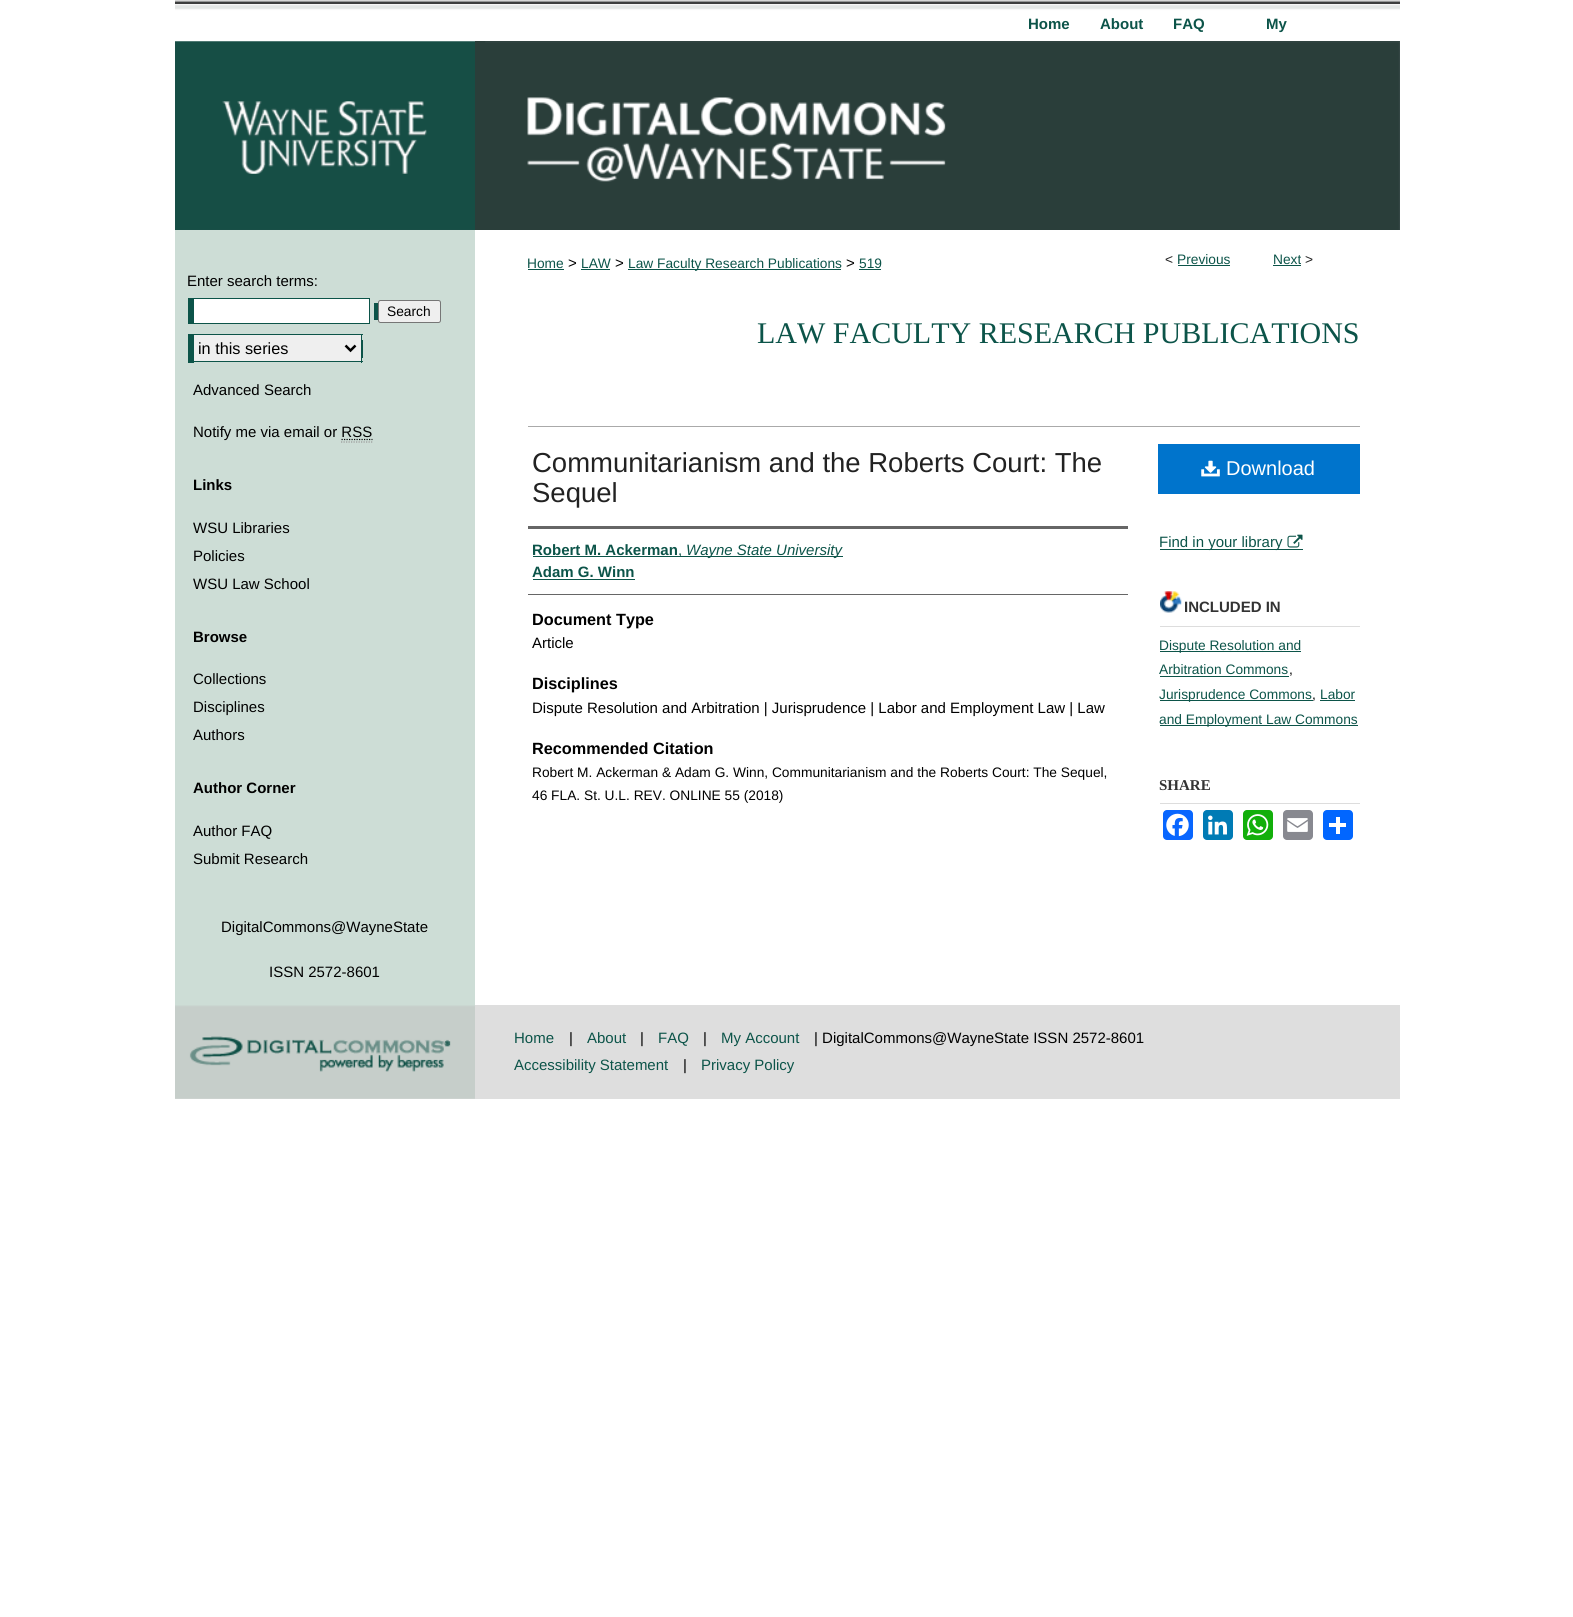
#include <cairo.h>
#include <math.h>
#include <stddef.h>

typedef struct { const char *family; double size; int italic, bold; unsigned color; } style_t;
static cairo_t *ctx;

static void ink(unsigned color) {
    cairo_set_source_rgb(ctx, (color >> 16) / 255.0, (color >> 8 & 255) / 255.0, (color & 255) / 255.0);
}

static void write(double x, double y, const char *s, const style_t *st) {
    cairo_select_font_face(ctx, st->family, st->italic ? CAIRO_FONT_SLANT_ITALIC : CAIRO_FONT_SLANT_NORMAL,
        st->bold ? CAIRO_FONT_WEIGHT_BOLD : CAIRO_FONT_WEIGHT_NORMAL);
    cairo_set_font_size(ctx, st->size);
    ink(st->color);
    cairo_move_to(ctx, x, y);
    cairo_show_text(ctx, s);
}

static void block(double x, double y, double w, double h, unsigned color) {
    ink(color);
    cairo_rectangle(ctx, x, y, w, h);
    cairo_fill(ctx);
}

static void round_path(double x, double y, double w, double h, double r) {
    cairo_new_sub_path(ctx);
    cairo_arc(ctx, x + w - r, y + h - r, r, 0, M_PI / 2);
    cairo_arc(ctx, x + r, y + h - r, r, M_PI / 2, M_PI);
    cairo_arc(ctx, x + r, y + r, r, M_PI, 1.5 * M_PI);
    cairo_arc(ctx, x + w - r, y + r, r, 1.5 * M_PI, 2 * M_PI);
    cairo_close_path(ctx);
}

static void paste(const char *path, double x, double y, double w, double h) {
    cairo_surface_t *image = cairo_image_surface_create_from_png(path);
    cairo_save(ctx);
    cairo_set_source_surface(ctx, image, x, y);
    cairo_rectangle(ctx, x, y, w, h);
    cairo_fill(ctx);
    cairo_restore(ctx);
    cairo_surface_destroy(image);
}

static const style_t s1 = {"Liberation Sans", 15, 0, 1, 0x0c5449};
static const style_t s2 = {"Liberation Sans", 15, 0, 0, 0x000000};
static const style_t s3 = {"Liberation Sans", 13.75, 0, 0, 0x000000};
static const style_t s4 = {"Liberation Sans", 16.25, 0, 0, 0x000000};
static const style_t s5 = {"Liberation Sans", 15, 0, 1, 0x000000};
static const style_t s6 = {"Liberation Sans", 13.75, 0, 0, 0x0c5449};
static const style_t s7 = {"Liberation Sans", 13.75, 0, 0, 0x222222};
static const style_t s8 = {"Liberation Serif", 30, 0, 0, 0x0c5449};
static const style_t s9 = {"Liberation Sans", 27.5, 0, 0, 0x222222};
static const style_t s10 = {"Liberation Sans", 15, 0, 0, 0x0c5449};
static const style_t s11 = {"Liberation Sans", 15, 1, 0, 0x0c5449};
static const style_t s12 = {"Liberation Sans", 16.25, 0, 1, 0x000000};
static const style_t s13 = {"Liberation Sans", 20, 0, 0, 0xffffff};
static const style_t s14 = {"Liberation Sans", 15, 0, 1, 0x333333};
static const style_t s15 = {"Liberation Serif", 15, 0, 1, 0x333333};

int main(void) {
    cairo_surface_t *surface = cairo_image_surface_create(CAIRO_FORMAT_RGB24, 1573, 1617);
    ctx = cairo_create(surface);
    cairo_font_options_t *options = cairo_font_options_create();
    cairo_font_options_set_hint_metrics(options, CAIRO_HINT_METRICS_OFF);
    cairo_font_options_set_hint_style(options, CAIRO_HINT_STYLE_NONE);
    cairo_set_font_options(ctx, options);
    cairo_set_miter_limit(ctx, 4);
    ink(0xffffff);
    cairo_paint(ctx);
    paste("pic1.png", 175, 0, 1225, 42);
    write(1028, 29, "Home", &s1);
    write(1100, 29, "About", &s1);
    write(1173, 29, "FAQ", &s1);
    write(1266, 29, "My", &s1);
    paste("pic2.png", 175, 41, 300, 189);
    block(475, 41, 925, 189, 0x2a3e3a);
    paste("pic3.png", 485, 41, 915, 189);
    block(175, 230, 300, 775, 0xcdddd6);
    write(187, 286, "Enter search terms:", &s2);
    block(188, 298, 182, 26, 0x0c5449);
    block(374, 303, 4, 17, 0x0c5449);
    block(194, 299, 175, 24, 0xffffff);
    ink(0xefefef);
    round_path(378.5, 300.5, 62, 22, 2);
    cairo_fill_preserve(ctx);
    ink(0x767676);
    cairo_set_line_width(ctx, 1);
    cairo_stroke(ctx);
    write(387, 316, "Search", &s3);
    block(362, 340, 1, 18, 0x0c5449);
    block(194, 335, 167, 26, 0xefefef);
    block(188, 334, 175, 1, 0x0c5449);
    block(361, 334, 1, 29, 0x0c5449);
    block(188, 361, 175, 1, 0x0c5449);
    block(188, 334, 6, 29, 0x0c5449);
    cairo_new_path(ctx);
    cairo_move_to(ctx, 345.5, 345.5);
    cairo_line_to(ctx, 350.5, 350.5);
    cairo_line_to(ctx, 355.5, 345.5);
    ink(0x000000);
    cairo_set_line_width(ctx, 2.5);
    cairo_stroke(ctx);
    write(198, 354, "in this series", &s4);
    write(193, 395, "Advanced Search", &s2);
    write(193, 437, "Notify me via email or RSS", &s2);
    cairo_new_path(ctx);
    cairo_move_to(ctx, 341.5, 439.5);
    cairo_line_to(ctx, 372.5, 439.5);
    ink(0x010101);
    cairo_set_line_width(ctx, 1.2);
    cairo_set_dash(ctx, (double[]){1.25, 1.25}, 2, 0);
    cairo_stroke(ctx);
    cairo_new_path(ctx);
    cairo_move_to(ctx, 341, 442);
    cairo_line_to(ctx, 372.5, 442);
    ink(0x999999);
    cairo_stroke(ctx);
    write(193, 490, "Links", &s5);
    write(193, 533, "WSU Libraries", &s2);
    write(193, 561, "Policies", &s2);
    write(193, 589, "WSU Law School", &s2);
    write(193, 642, "Browse", &s5);
    write(193, 684, "Collections", &s2);
    write(193, 712, "Disciplines", &s2);
    write(193, 740, "Authors", &s2);
    write(193, 793, "Author Corner", &s5);
    write(193, 836, "Author FAQ", &s2);
    write(193, 864, "Submit Research", &s2);
    write(221, 932, "DigitalCommons@WayneState", &s2);
    write(269, 977, "ISSN 2572-8601", &s2);
    write(527, 268, "Home", &s6);
    block(528, 269, 36, 1, 0x0c5449);
    write(568, 268, ">", &s2);
    write(581, 268, "LAW", &s6);
    block(581, 269, 29, 1, 0x0c5449);
    write(615, 268, ">", &s2);
    block(628, 269, 213, 1, 0x0c5449);
    write(628, 268, "Law Faculty Research Publications", &s6);
    write(846, 268, ">", &s2);
    write(859, 268, "519", &s6);
    block(859, 269, 22, 1, 0x0c5449);
    write(1165, 264, "<", &s7);
    write(1177, 264, "Previous", &s6);
    block(1178, 265, 52, 1, 0x0c5449);
    write(1273, 264, "Next", &s6);
    block(1273, 265, 28, 1, 0x0c5449);
    write(1305, 264, ">", &s7);
    write(757, 343, "LAW FACULTY RESEARCH PUBLICATIONS", &s8);
    block(528, 426, 832, 1, 0xaaaaaa);
    write(532, 472, "Communitarianism and the Roberts Court: The", &s9);
    write(532, 502, "Sequel", &s9);
    block(528, 526, 600, 3, 0x666666);
    block(528, 594, 600, 1, 0x666666);
    write(532, 555, "Robert M. Ackerman", &s1);
    block(533, 556, 310, 1, 0x0c5449);
    write(678, 555, ",", &s10);
    write(686, 555, "Wayne State University", &s11);
    write(532, 577, "Adam G. Winn", &s1);
    block(533, 579, 102, 1, 0x0c5449);
    write(532, 625, "Document Type", &s12);
    write(532, 648, "Article", &s2);
    write(532, 689, "Disciplines", &s12);
    write(532, 713, "Dispute Resolution and Arbitration | Jurisprudence | Labor and Employment Law | Law", &s2);
    write(532, 754, "Recommended Citation", &s12);
    write(532, 777, "Robert M. Ackerman & Adam G. Winn, Communitarianism and the Roberts Court: The Sequel,", &s3);
    write(532, 800, "46 FLA. St. U.L. REV. ONLINE 55 (2018)", &s3);
    block(1158, 444, 202, 50, 0x0074cc);
    paste("pic4.png", 1201, 460, 19, 17);
    write(1226, 475, "Download", &s13);
    block(1160, 549, 143, 1, 0x0c5449);
    write(1159, 547, "Find in your library", &s10);
    paste("pic5.png", 1287, 534, 16, 14);
    paste("pic6.png", 1160, 591, 22, 22);
    block(1160, 626, 200, 1, 0xdddddd);
    write(1184, 612, "INCLUDED IN", &s14);
    block(1160, 651, 141, 1, 0x0c5449);
    write(1159, 650, "Dispute Resolution and", &s6);
    write(1159, 674, "Arbitration Commons", &s6);
    block(1160, 676, 129, 1, 0x0c5449);
    write(1289, 674, ",", &s3);
    block(1160, 700, 153, 1, 0x0c5449);
    write(1159, 699, "Jurisprudence Commons", &s6);
    write(1312, 699, ",", &s3);
    write(1320, 699, "Labor", &s6);
    block(1320, 700, 35, 1, 0x0c5449);
    block(1160, 725, 198, 1, 0x0c5449);
    write(1159, 724, "and Employment Law Commons", &s6);
    block(1160, 803, 200, 1, 0xdddddd);
    write(1159, 790, "SHARE", &s15);
    ink(0x0866ff);
    round_path(1163, 810, 30, 30, 4);
    cairo_fill(ctx);
    paste("pic7.png", 1166, 813, 23, 24);
    ink(0x007bb5);
    round_path(1203, 810, 30, 30, 4);
    cairo_fill(ctx);
    paste("pic8.png", 1208, 815, 19, 20);
    ink(0x12af0a);
    round_path(1243, 810, 30, 30, 4);
    cairo_fill(ctx);
    paste("pic9.png", 1246, 814, 23, 22);
    ink(0x888990);
    round_path(1283, 810, 30, 30, 4);
    cairo_fill(ctx);
    paste("pic10.png", 1287, 818, 21, 14);
    ink(0x0166ff);
    round_path(1323, 810, 30, 30, 4);
    cairo_fill(ctx);
    block(1336, 817, 4, 17, 0xffffff);
    block(1329, 823, 17, 4, 0xffffff);
    block(175, 1005, 1225, 94, 0xdedede);
    paste("pic11.png", 175, 1005, 300, 94);
    write(514, 1043, "Home", &s10);
    write(569, 1043, "|", &s2);
    write(587, 1043, "About", &s10);
    write(640, 1043, "|", &s2);
    write(658, 1043, "FAQ", &s10);
    write(703, 1043, "|", &s2);
    write(721, 1043, "My Account", &s10);
    write(814, 1043, "| DigitalCommons@WayneState ISSN 2572-8601", &s2);
    write(514, 1070, "Accessibility Statement", &s10);
    write(683, 1070, "|", &s2);
    write(701, 1070, "Privacy Policy", &s10);
    cairo_surface_write_to_png(surface, "screenshot.png");
    cairo_font_options_destroy(options);
    cairo_destroy(ctx);
    cairo_surface_destroy(surface);
    return 0;
}
